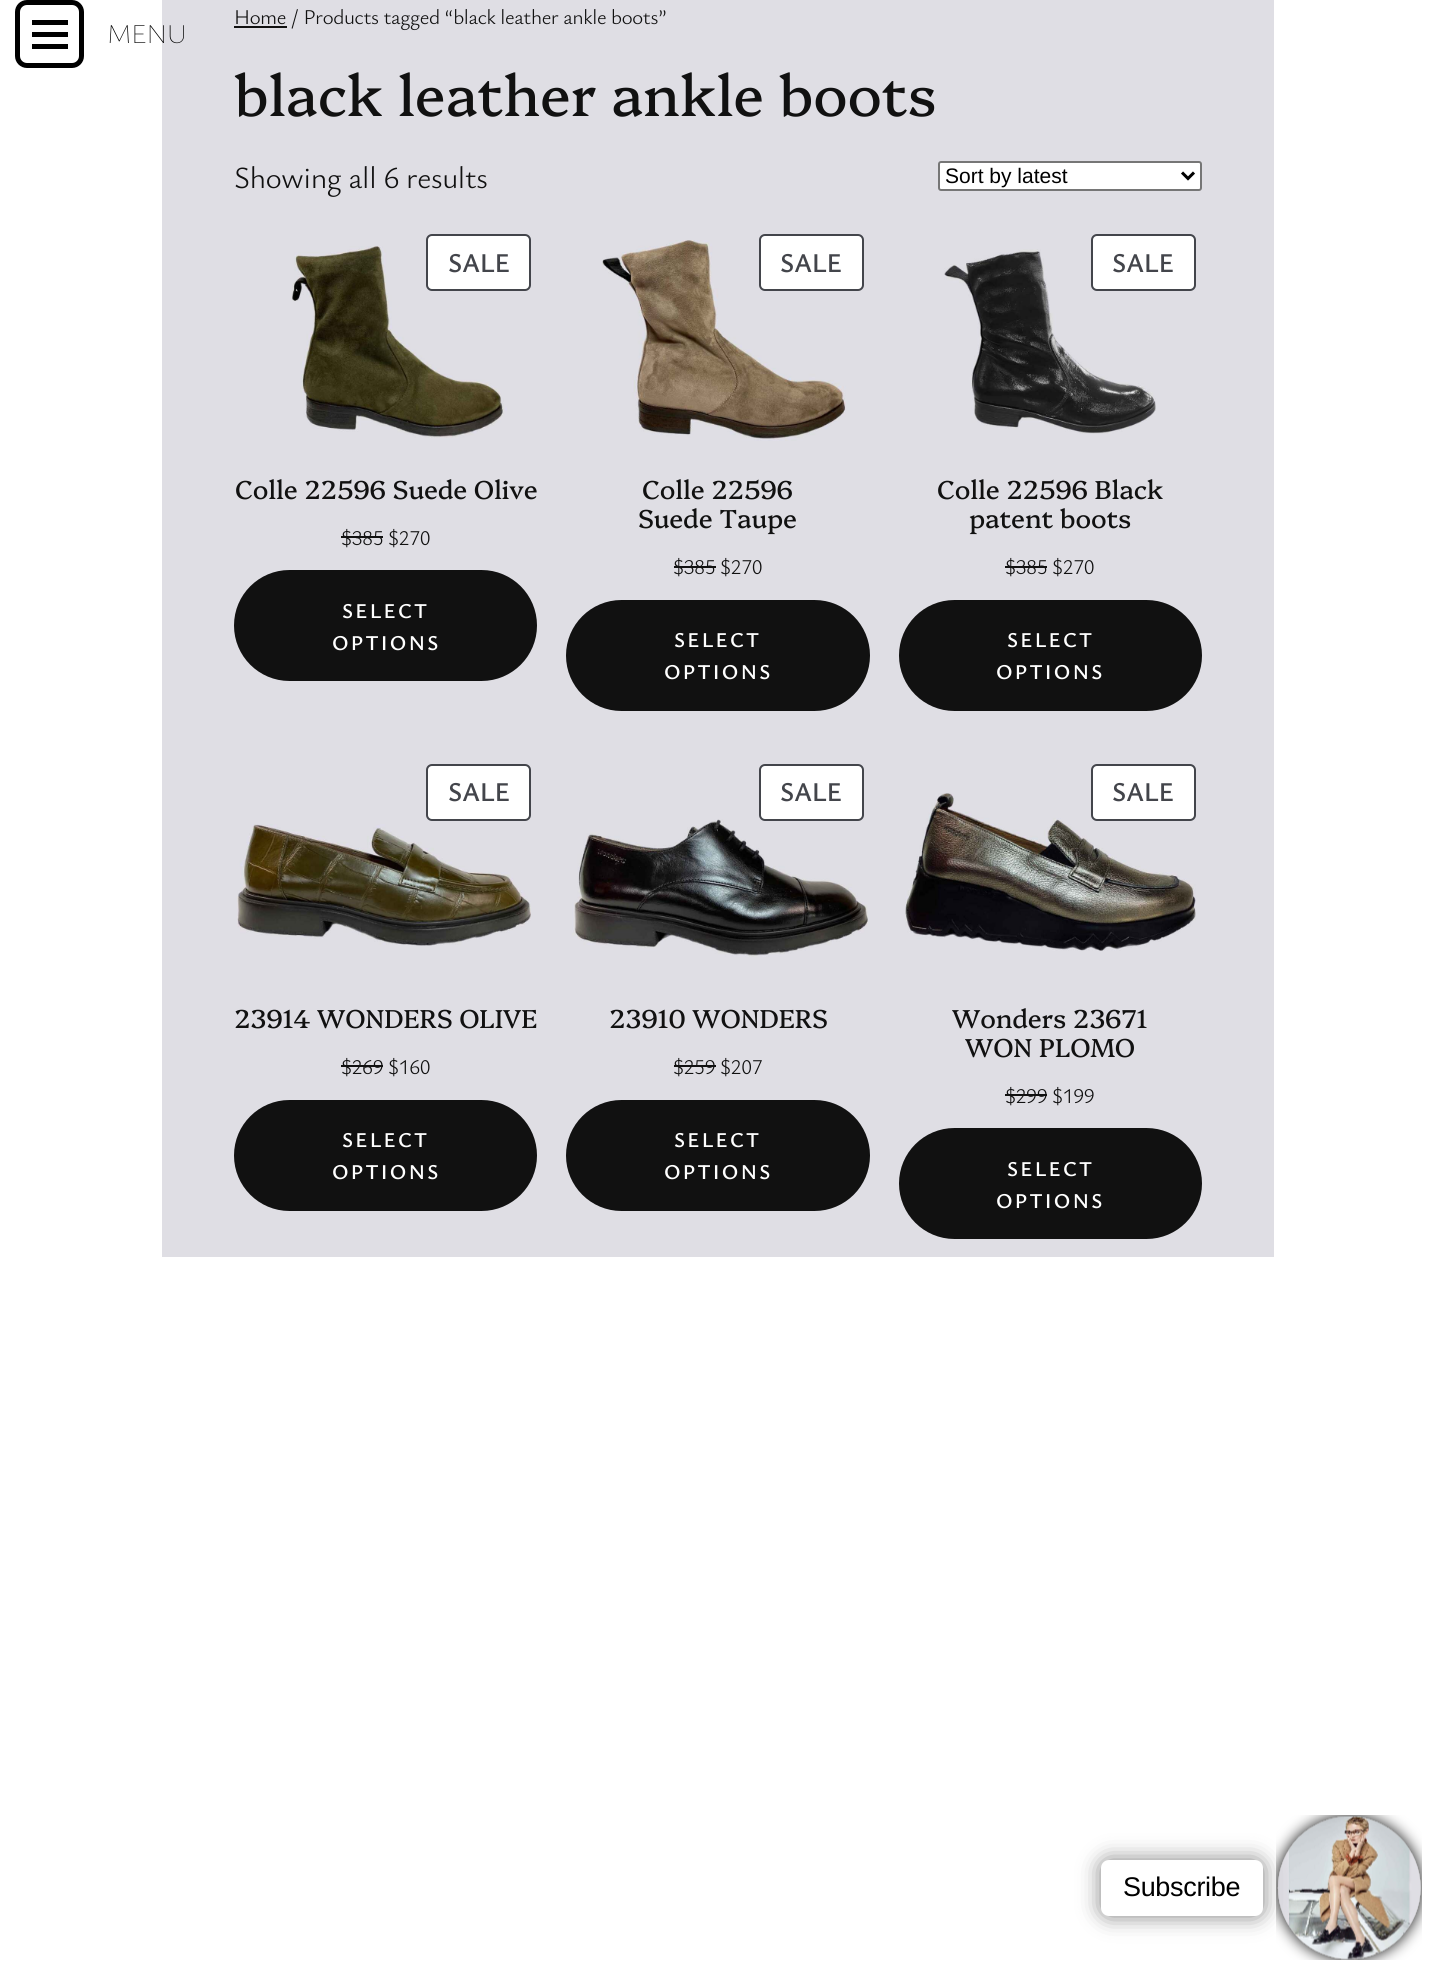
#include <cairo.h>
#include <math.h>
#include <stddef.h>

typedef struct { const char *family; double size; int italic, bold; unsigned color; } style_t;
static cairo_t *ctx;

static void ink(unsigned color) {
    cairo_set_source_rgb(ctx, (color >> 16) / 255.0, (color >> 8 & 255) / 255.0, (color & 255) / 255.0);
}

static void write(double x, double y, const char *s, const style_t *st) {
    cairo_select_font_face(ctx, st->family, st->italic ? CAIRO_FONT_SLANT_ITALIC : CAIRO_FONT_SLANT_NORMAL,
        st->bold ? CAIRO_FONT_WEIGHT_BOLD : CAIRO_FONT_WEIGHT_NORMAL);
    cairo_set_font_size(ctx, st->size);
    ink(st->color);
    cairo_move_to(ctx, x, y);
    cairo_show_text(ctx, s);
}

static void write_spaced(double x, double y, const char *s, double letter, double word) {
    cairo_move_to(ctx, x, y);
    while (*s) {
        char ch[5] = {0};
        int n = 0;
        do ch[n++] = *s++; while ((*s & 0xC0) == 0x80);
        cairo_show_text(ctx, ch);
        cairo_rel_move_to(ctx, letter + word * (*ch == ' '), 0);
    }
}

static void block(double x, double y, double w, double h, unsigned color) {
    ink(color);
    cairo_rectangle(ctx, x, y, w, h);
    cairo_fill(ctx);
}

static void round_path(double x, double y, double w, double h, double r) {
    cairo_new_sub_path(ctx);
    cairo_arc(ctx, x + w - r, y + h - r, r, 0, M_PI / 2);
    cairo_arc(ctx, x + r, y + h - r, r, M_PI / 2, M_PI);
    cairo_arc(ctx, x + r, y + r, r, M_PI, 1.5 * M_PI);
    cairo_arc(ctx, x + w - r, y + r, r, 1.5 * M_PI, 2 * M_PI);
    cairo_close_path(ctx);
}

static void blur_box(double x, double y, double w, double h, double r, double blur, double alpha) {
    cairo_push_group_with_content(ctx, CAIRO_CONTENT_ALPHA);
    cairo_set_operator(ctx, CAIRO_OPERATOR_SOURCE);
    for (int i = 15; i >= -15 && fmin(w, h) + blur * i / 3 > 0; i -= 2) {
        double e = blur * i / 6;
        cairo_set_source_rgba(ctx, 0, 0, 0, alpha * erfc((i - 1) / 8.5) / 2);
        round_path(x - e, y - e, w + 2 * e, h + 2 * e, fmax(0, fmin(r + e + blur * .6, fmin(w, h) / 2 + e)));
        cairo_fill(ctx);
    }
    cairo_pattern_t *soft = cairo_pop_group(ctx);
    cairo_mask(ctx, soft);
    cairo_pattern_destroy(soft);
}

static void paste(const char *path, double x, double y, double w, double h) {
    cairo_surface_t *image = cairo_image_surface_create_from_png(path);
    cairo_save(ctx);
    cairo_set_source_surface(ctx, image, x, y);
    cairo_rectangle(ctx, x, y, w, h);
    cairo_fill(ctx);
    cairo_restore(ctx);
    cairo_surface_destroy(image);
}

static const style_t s1 = {"Liberation Sans", 21, 0, 0, 0x000000};

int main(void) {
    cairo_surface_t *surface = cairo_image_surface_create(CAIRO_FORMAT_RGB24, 1435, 1974);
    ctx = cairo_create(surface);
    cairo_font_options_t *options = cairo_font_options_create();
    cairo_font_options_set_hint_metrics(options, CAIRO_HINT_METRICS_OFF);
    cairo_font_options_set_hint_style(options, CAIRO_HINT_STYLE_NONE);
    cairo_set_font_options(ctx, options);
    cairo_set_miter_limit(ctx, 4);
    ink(0xffffff);
    cairo_paint(ctx);
    block(32, 20, 36, 5, 0x000000);
    block(32, 44, 36, 5, 0x000000);
    round_path(17.5, 2.5, 64, 63, 9.5);
    cairo_set_line_width(ctx, 5);
    cairo_stroke(ctx);
    block(32, 32, 36, 5, 0x000000);
    block(162, 0, 1112, 1257, 0xdfdee4);
    cairo_select_font_face(ctx, "Ysabeau Office Thin", CAIRO_FONT_SLANT_NORMAL, CAIRO_FONT_WEIGHT_NORMAL);
    cairo_set_font_size(ctx, 27);
    ink(0x000000);
    write_spaced(107, 43, "MENU", -0.33, 0);
    block(234, 26, 53, 2, 0x111111);
    cairo_select_font_face(ctx, "Ysabeau Office Light", CAIRO_FONT_SLANT_NORMAL, CAIRO_FONT_WEIGHT_NORMAL);
    cairo_set_font_size(ctx, 21);
    write_spaced(234, 24, "Home / Products tagged “black leather ankle boots”", -0.33, 0);
    cairo_select_font_face(ctx, "Platypi", CAIRO_FONT_SLANT_NORMAL, CAIRO_FONT_WEIGHT_NORMAL);
    cairo_set_font_size(ctx, 57);
    write_spaced(234, 116, "black leather ankle boots", -0.15, 0);
    cairo_select_font_face(ctx, "Ysabeau Office Light", CAIRO_FONT_SLANT_NORMAL, CAIRO_FONT_WEIGHT_NORMAL);
    cairo_set_font_size(ctx, 30.75);
    write_spaced(234, 188, "Showing all 6 results", -0.33, 0);
    ink(0xffffff);
    round_path(939, 162, 262, 28, 2);
    cairo_fill_preserve(ctx);
    ink(0x767676);
    cairo_set_line_width(ctx, 2);
    cairo_stroke(ctx);
    cairo_new_path(ctx);
    cairo_move_to(ctx, 1182, 172.5);
    cairo_line_to(ctx, 1188, 178.5);
    cairo_line_to(ctx, 1194, 172.5);
    ink(0x000000);
    cairo_set_line_width(ctx, 3);
    cairo_stroke(ctx);
    write(945, 183, "Sort by latest", &s1);
    paste("pic1.png", 292, 246, 215, 192);
    ink(0xffffff);
    round_path(427, 235, 103, 55, 5);
    cairo_fill_preserve(ctx);
    ink(0x43454b);
    cairo_set_line_width(ctx, 2);
    cairo_stroke(ctx);
    cairo_select_font_face(ctx, "Ysabeau Office SemiBold", CAIRO_FONT_SLANT_NORMAL, CAIRO_FONT_WEIGHT_NORMAL);
    cairo_set_font_size(ctx, 27);
    write_spaced(448, 272, "SALE", -0.33, 0);
    cairo_select_font_face(ctx, "Platypi", CAIRO_FONT_SLANT_NORMAL, CAIRO_FONT_WEIGHT_NORMAL);
    cairo_set_font_size(ctx, 25.9);
    ink(0x111111);
    write_spaced(235, 499, "Colle 22596 Suede Olive", -0.15, 0);
    cairo_select_font_face(ctx, "Ysabeau Office Light", CAIRO_FONT_SLANT_NORMAL, CAIRO_FONT_WEIGHT_NORMAL);
    cairo_set_font_size(ctx, 21);
    write_spaced(341, 545, "$385 $270", -0.33, 0);
    block(341, 536, 42, 2, 0x111111);
    round_path(234, 570, 303, 111, 55.5);
    cairo_fill(ctx);
    cairo_select_font_face(ctx, "Ysabeau Office SemiBold", CAIRO_FONT_SLANT_NORMAL, CAIRO_FONT_WEIGHT_NORMAL);
    ink(0xffffff);
    write_spaced(342, 618, "SELECT", 2.25, 0);
    write_spaced(332, 650, "OPTIONS", 2.25, 0);
    paste("pic2.png", 602, 240, 244, 201);
    round_path(760, 235, 103, 55, 5);
    cairo_fill_preserve(ctx);
    ink(0x43454b);
    cairo_stroke(ctx);
    cairo_set_font_size(ctx, 27);
    write_spaced(780, 272, "SALE", -0.33, 0);
    cairo_select_font_face(ctx, "Platypi", CAIRO_FONT_SLANT_NORMAL, CAIRO_FONT_WEIGHT_NORMAL);
    cairo_set_font_size(ctx, 25.9);
    ink(0x111111);
    write_spaced(642, 499, "Colle 22596", -0.15, 0);
    write_spaced(638, 528, "Suede Taupe", -0.15, 0);
    cairo_select_font_face(ctx, "Ysabeau Office Light", CAIRO_FONT_SLANT_NORMAL, CAIRO_FONT_WEIGHT_NORMAL);
    cairo_set_font_size(ctx, 21);
    write_spaced(673, 574, "$385 $270", -0.33, 0);
    block(674, 566, 42, 2, 0x111111);
    round_path(566, 600, 304, 111, 55.5);
    cairo_fill(ctx);
    cairo_select_font_face(ctx, "Ysabeau Office SemiBold", CAIRO_FONT_SLANT_NORMAL, CAIRO_FONT_WEIGHT_NORMAL);
    ink(0xffffff);
    write_spaced(674, 647, "SELECT", 2.25, 0);
    write_spaced(664, 679, "OPTIONS", 2.25, 0);
    paste("pic3.png", 944, 249, 212, 185);
    round_path(1092, 235, 103, 55, 5);
    cairo_fill_preserve(ctx);
    ink(0x43454b);
    cairo_stroke(ctx);
    cairo_set_font_size(ctx, 27);
    write_spaced(1112, 272, "SALE", -0.33, 0);
    cairo_select_font_face(ctx, "Platypi", CAIRO_FONT_SLANT_NORMAL, CAIRO_FONT_WEIGHT_NORMAL);
    cairo_set_font_size(ctx, 25.9);
    ink(0x111111);
    write_spaced(937, 499, "Colle 22596 Black", -0.15, 0);
    write_spaced(969, 528, "patent boots", -0.15, 0);
    cairo_select_font_face(ctx, "Ysabeau Office Light", CAIRO_FONT_SLANT_NORMAL, CAIRO_FONT_WEIGHT_NORMAL);
    cairo_set_font_size(ctx, 21);
    write_spaced(1005, 574, "$385 $270", -0.33, 0);
    block(1005, 566, 42, 2, 0x111111);
    round_path(899, 600, 303, 111, 55.5);
    cairo_fill(ctx);
    cairo_select_font_face(ctx, "Ysabeau Office SemiBold", CAIRO_FONT_SLANT_NORMAL, CAIRO_FONT_WEIGHT_NORMAL);
    ink(0xffffff);
    write_spaced(1007, 647, "SELECT", 2.25, 0);
    write_spaced(996, 679, "OPTIONS", 2.25, 0);
    round_path(427, 765, 103, 55, 5);
    cairo_fill_preserve(ctx);
    ink(0x43454b);
    cairo_stroke(ctx);
    cairo_set_font_size(ctx, 27);
    write_spaced(448, 801, "SALE", -0.33, 0);
    paste("pic4.png", 237, 824, 294, 122);
    cairo_select_font_face(ctx, "Platypi", CAIRO_FONT_SLANT_NORMAL, CAIRO_FONT_WEIGHT_NORMAL);
    cairo_set_font_size(ctx, 25.9);
    ink(0x111111);
    write_spaced(234, 1028, "23914 WONDERS OLIVE", -0.15, 0);
    cairo_select_font_face(ctx, "Ysabeau Office Light", CAIRO_FONT_SLANT_NORMAL, CAIRO_FONT_WEIGHT_NORMAL);
    cairo_set_font_size(ctx, 21);
    write_spaced(341, 1074, "$269 $160", -0.33, 0);
    block(341, 1065, 42, 2, 0x111111);
    round_path(234, 1100, 303, 111, 55.5);
    cairo_fill(ctx);
    cairo_select_font_face(ctx, "Ysabeau Office SemiBold", CAIRO_FONT_SLANT_NORMAL, CAIRO_FONT_WEIGHT_NORMAL);
    ink(0xffffff);
    write_spaced(342, 1147, "SELECT", 2.25, 0);
    write_spaced(332, 1179, "OPTIONS", 2.25, 0);
    paste("pic5.png", 572, 819, 296, 138);
    round_path(760, 765, 103, 55, 5);
    cairo_fill_preserve(ctx);
    ink(0x43454b);
    cairo_stroke(ctx);
    cairo_set_font_size(ctx, 27);
    write_spaced(780, 801, "SALE", -0.33, 0);
    cairo_select_font_face(ctx, "Platypi", CAIRO_FONT_SLANT_NORMAL, CAIRO_FONT_WEIGHT_NORMAL);
    cairo_set_font_size(ctx, 25.9);
    ink(0x111111);
    write_spaced(609, 1028, "23910 WONDERS", -0.15, 0);
    cairo_select_font_face(ctx, "Ysabeau Office Light", CAIRO_FONT_SLANT_NORMAL, CAIRO_FONT_WEIGHT_NORMAL);
    cairo_set_font_size(ctx, 21);
    write_spaced(673, 1074, "$259 $207", -0.33, 0);
    block(674, 1065, 42, 2, 0x111111);
    round_path(566, 1100, 304, 111, 55.5);
    cairo_fill(ctx);
    cairo_select_font_face(ctx, "Ysabeau Office SemiBold", CAIRO_FONT_SLANT_NORMAL, CAIRO_FONT_WEIGHT_NORMAL);
    ink(0xffffff);
    write_spaced(674, 1147, "SELECT", 2.25, 0);
    write_spaced(664, 1179, "OPTIONS", 2.25, 0);
    paste("pic6.png", 905, 793, 291, 158);
    round_path(1092, 765, 103, 55, 5);
    cairo_fill_preserve(ctx);
    ink(0x43454b);
    cairo_stroke(ctx);
    cairo_set_font_size(ctx, 27);
    write_spaced(1112, 801, "SALE", -0.33, 0);
    cairo_select_font_face(ctx, "Platypi", CAIRO_FONT_SLANT_NORMAL, CAIRO_FONT_WEIGHT_NORMAL);
    cairo_set_font_size(ctx, 25.9);
    ink(0x111111);
    write_spaced(952, 1028, "Wonders 23671", -0.15, 0);
    write_spaced(965, 1057, "WON PLOMO", -0.15, 0);
    cairo_select_font_face(ctx, "Ysabeau Office Light", CAIRO_FONT_SLANT_NORMAL, CAIRO_FONT_WEIGHT_NORMAL);
    cairo_set_font_size(ctx, 21);
    write_spaced(1005, 1103, "$299 $199", -0.33, 0);
    block(1005, 1094, 42, 2, 0x111111);
    round_path(899, 1128, 303, 111, 55.5);
    cairo_fill(ctx);
    cairo_select_font_face(ctx, "Ysabeau Office SemiBold", CAIRO_FONT_SLANT_NORMAL, CAIRO_FONT_WEIGHT_NORMAL);
    ink(0xffffff);
    write_spaced(1007, 1176, "SELECT", 2.25, 0);
    write_spaced(996, 1208, "OPTIONS", 2.25, 0);
    paste("pic7.png", 1276, 1815, 146, 145);
    ink(0x000000);
    blur_box(1101, 1860, 162, 56, 8, 11, 0.5);
    ink(0xffffff);
    round_path(1101, 1860, 162, 56, 8);
    cairo_fill(ctx);
    cairo_select_font_face(ctx, "Liberation Sans", CAIRO_FONT_SLANT_NORMAL, CAIRO_FONT_WEIGHT_NORMAL);
    cairo_set_font_size(ctx, 27);
    ink(0x000000);
    write_spaced(1123, 1896, "Subscribe", -0.33, 0);
    cairo_surface_write_to_png(surface, "screenshot.png");
    cairo_font_options_destroy(options);
    cairo_destroy(ctx);
    cairo_surface_destroy(surface);
    return 0;
}
